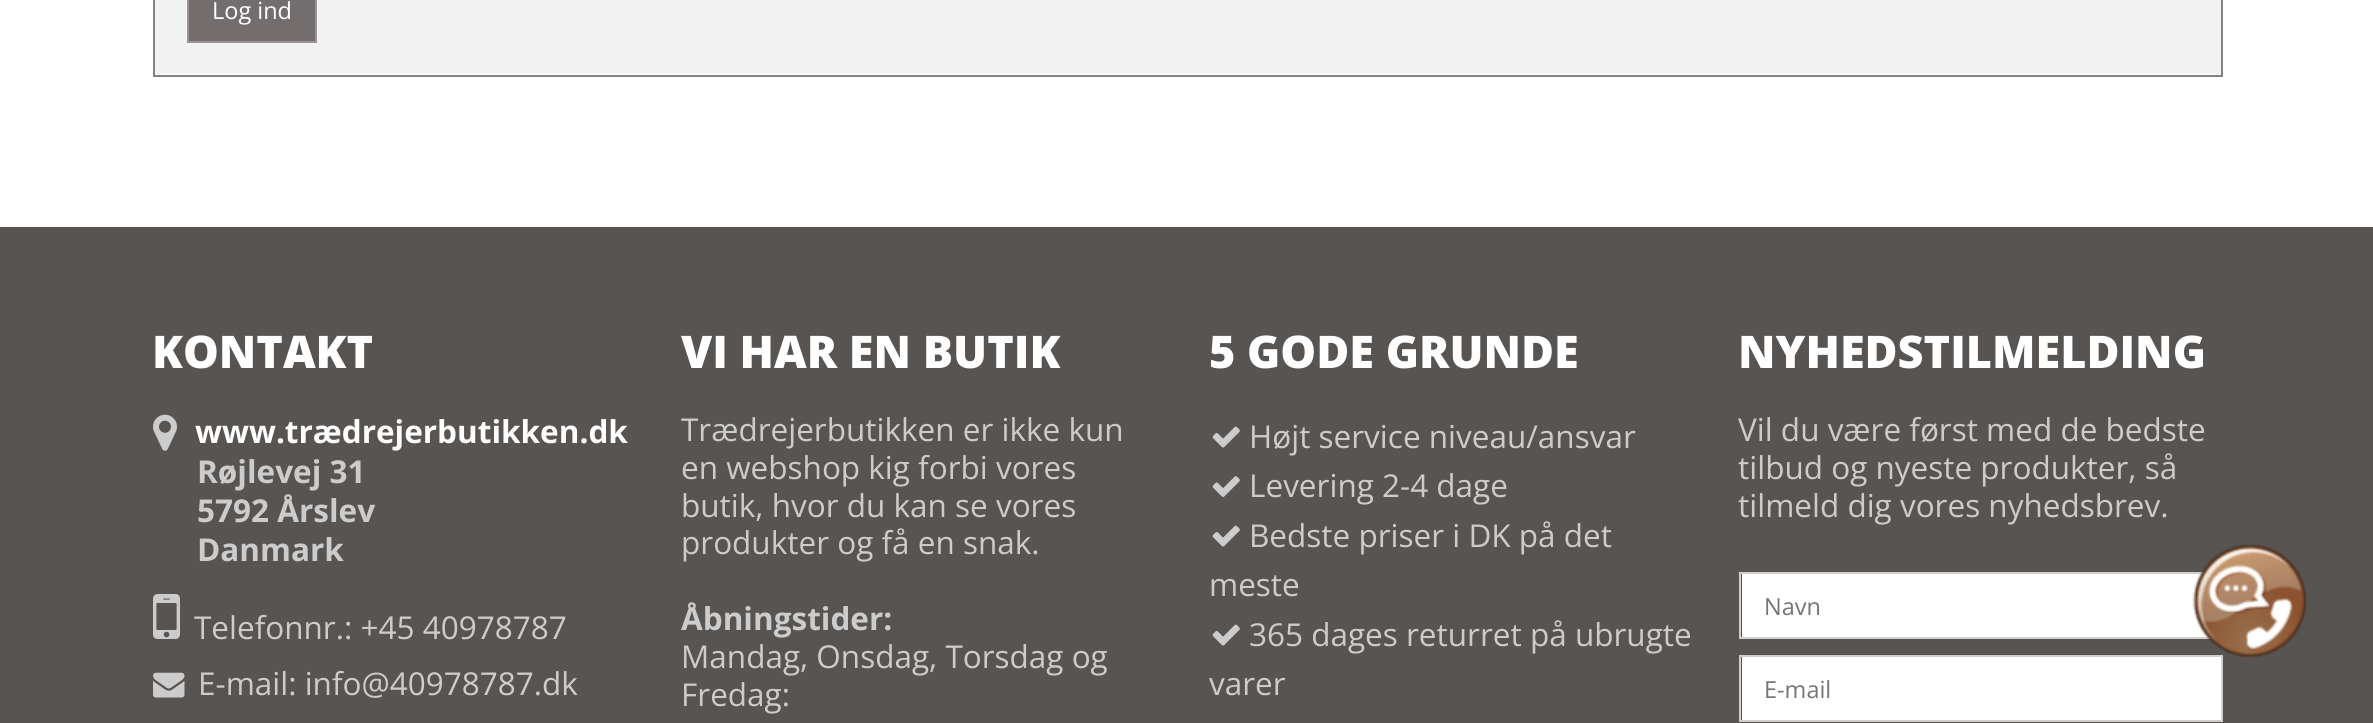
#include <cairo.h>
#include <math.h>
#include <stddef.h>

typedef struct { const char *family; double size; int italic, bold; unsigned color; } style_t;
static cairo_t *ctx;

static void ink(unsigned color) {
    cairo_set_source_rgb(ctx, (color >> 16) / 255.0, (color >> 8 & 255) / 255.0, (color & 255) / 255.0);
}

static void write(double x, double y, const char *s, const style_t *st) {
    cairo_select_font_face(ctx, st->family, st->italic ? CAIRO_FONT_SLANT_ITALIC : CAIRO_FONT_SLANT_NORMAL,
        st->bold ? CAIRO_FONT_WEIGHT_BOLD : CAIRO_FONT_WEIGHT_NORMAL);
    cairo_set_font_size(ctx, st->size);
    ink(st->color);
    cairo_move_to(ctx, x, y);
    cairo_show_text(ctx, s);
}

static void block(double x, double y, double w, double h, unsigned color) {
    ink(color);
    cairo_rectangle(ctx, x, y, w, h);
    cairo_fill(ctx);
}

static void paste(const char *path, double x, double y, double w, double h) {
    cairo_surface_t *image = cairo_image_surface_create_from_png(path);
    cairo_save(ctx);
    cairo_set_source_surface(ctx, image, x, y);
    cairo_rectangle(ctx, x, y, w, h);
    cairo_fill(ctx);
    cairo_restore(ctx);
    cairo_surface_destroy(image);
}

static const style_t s1 = {"Open Sans", 23.5, 0, 0, 0xffffff};
static const style_t s2 = {"Open Sans ExtraBold", 45, 0, 0, 0xffffff};
static const style_t s3 = {"Open Sans", 31.5, 0, 1, 0xffffff};
static const style_t s4 = {"Open Sans", 31.5, 0, 1, 0xcccccc};
static const style_t s5 = {"Open Sans", 31.5, 0, 0, 0xcccccc};
static const style_t s6 = {"Open Sans", 23.5, 0, 0, 0x757575};

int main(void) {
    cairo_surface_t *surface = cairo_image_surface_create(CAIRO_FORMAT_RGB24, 2373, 723);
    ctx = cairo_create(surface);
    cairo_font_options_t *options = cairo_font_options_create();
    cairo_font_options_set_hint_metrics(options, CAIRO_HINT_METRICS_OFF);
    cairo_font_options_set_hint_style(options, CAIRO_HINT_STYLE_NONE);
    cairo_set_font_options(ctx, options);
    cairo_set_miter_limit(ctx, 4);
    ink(0xffffff);
    cairo_paint(ctx);
    cairo_rectangle(ctx, 154, -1, 2068, 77);
    ink(0x828282);
    cairo_stroke(ctx);
    block(155, 0, 2066, 74, 0xf2f2f2);
    ink(0x736d6d);
    cairo_rectangle(ctx, 188, -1, 128, 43);
    cairo_fill_preserve(ctx);
    ink(0x999393);
    cairo_stroke(ctx);
    write(212, 19, "Log ind", &s1);
    block(0, 227, 2373, 496, 0x575451);
    write(152, 368, "KONTAKT", &s2);
    paste("pic1.png", 153, 414, 24, 37);
    write(195, 443, "www.trædrejerbutikken.dk", &s3);
    write(197, 483, "Røjlevej 31", &s4);
    write(197, 522, "5792 Årslev", &s4);
    write(197, 561, "Danmark", &s4);
    paste("pic2.png", 153, 594, 27, 45);
    write(194, 639, "Telefonnr.: +45 40978787", &s5);
    paste("pic3.png", 153, 672, 32, 26);
    write(198, 695, "E-mail: info@40978787.dk", &s5);
    write(681, 368, "VI HAR EN BUTIK", &s2);
    write(681, 441, "Trædrejerbutikken er ikke kun", &s5);
    write(681, 479, "en webshop kig forbi vores", &s5);
    write(681, 517, "butik, hvor du kan se vores", &s5);
    write(681, 554, "produkter og få en snak.", &s5);
    write(681, 630, "Åbningstider:", &s4);
    write(681, 668, "Mandag, Onsdag, Torsdag og", &s5);
    write(681, 706, "Fredag:", &s5);
    write(1209, 368, "5 GODE GRUNDE", &s2);
    paste("pic4.png", 1212, 426, 28, 22);
    write(1249, 448, "Højt service niveau/ansvar", &s5);
    paste("pic5.png", 1212, 476, 28, 21);
    write(1249, 497, "Levering 2-4 dage", &s5);
    paste("pic4.png", 1212, 525, 28, 22);
    write(1249, 547, "Bedste priser i DK på det", &s5);
    write(1209, 596, "meste", &s5);
    paste("pic4.png", 1212, 624, 28, 22);
    write(1249, 646, "365 dages returret på ubrugte", &s5);
    write(1209, 695, "varer", &s5);
    write(1738, 368, "NYHEDSTILMELDING", &s2);
    write(1738, 441, "Vil du være først med de bedste", &s5);
    write(1738, 479, "tilbud og nyeste produkter, så", &s5);
    write(1738, 517, "tilmeld dig vores nyhedsbrev.", &s5);
    block(1742, 574, 469, 63, 0xffffff);
    cairo_rectangle(ctx, 1740, 573, 482, 65);
    ink(0xcfcfcf);
    cairo_stroke(ctx);
    write(1764, 615, "Navn", &s6);
    block(1742, 657, 479, 63, 0xffffff);
    cairo_rectangle(ctx, 1740, 656, 482, 65);
    ink(0xcfcfcf);
    cairo_stroke(ctx);
    write(1764, 698, "E-mail", &s6);
    paste("pic6.png", 2192, 543, 115, 115);
    cairo_surface_write_to_png(surface, "screenshot.png");
    cairo_font_options_destroy(options);
    cairo_destroy(ctx);
    cairo_surface_destroy(surface);
    return 0;
}
